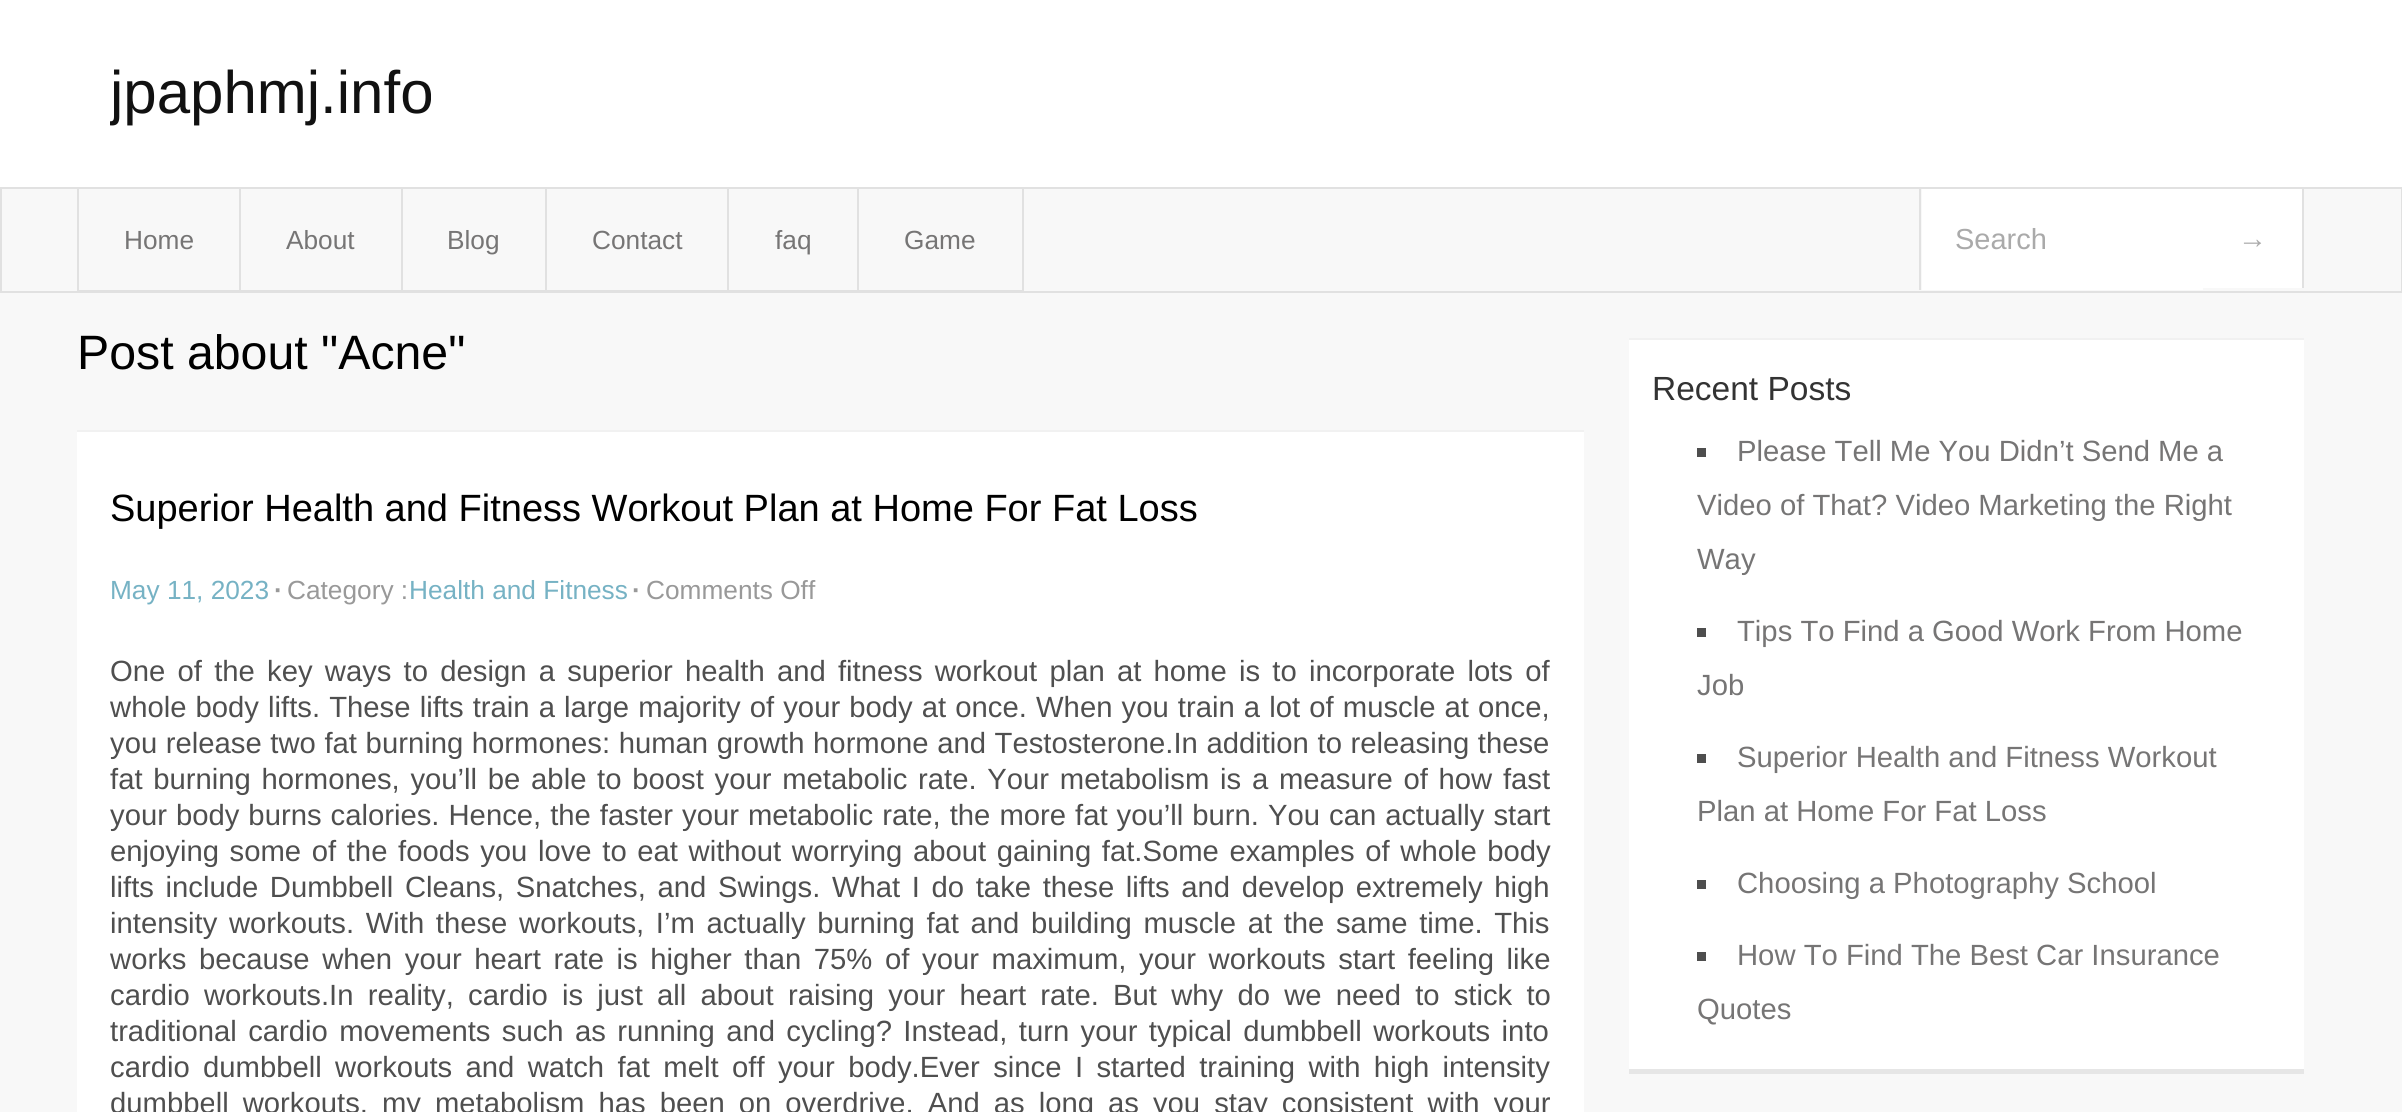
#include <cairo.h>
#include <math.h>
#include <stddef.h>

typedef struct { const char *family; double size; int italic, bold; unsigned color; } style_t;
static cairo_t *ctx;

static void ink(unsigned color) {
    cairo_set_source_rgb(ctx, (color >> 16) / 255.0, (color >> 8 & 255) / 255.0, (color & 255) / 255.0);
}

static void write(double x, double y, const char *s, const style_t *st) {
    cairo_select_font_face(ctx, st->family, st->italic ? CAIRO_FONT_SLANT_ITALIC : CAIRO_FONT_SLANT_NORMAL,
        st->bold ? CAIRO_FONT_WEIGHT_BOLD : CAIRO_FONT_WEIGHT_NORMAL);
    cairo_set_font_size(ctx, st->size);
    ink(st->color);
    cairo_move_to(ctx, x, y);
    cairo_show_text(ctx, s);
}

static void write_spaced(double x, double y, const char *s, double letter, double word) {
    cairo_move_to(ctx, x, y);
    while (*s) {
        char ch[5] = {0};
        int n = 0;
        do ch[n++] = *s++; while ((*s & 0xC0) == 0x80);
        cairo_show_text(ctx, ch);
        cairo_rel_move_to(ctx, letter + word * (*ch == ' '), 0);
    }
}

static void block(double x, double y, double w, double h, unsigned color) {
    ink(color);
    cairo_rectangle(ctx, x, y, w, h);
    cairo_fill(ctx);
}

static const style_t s1 = {"Liberation Sans", 60, 0, 0, 0x111111};
static const style_t s2 = {"Liberation Sans", 26.25, 0, 0, 0x767575};
static const style_t s3 = {"Liberation Sans", 29, 0, 0, 0xaaaaaa};
static const style_t s4 = {"Liberation Sans", 48.25, 0, 0, 0x000000};
static const style_t s5 = {"Liberation Sans", 38, 0, 0, 0x000000};
static const style_t s6 = {"Liberation Sans", 26.25, 0, 0, 0x76b2c4};
static const style_t s7 = {"Liberation Sans", 26.25, 0, 1, 0x999999};
static const style_t s8 = {"Liberation Sans", 26.25, 0, 0, 0x999999};
static const style_t s9 = {"Liberation Sans", 33.5, 0, 0, 0x333333};
static const style_t s10 = {"Liberation Sans", 29.25, 0, 0, 0x767575};

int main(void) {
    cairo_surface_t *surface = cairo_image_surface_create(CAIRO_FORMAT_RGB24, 2402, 1112);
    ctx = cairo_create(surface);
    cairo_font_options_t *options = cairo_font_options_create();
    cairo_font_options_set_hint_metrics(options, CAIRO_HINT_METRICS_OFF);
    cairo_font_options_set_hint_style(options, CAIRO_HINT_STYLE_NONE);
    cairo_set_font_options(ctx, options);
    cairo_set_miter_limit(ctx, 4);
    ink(0xf8f8f8);
    cairo_paint(ctx);
    block(0, 0, 2402, 187, 0xffffff);
    cairo_save(ctx);
    cairo_rectangle(ctx, 110, 0, 2217, 131);
    cairo_clip(ctx);
    write(110, 113, "jpaphmj.info", &s1);
    cairo_restore(ctx);
    cairo_rectangle(ctx, 1, 188, 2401, 104);
    ink(0xe1e1e1);
    cairo_stroke(ctx);
    block(77, 189, 2, 104, 0xe1e1e1);
    block(239, 189, 2, 104, 0xe1e1e1);
    block(79, 290, 162, 1, 0xe1e1e1);
    write(124, 249, "Home", &s2);
    block(401, 189, 2, 104, 0xe1e1e1);
    block(241, 290, 162, 1, 0xe1e1e1);
    write(286, 249, "About", &s2);
    block(545, 189, 2, 104, 0xe1e1e1);
    block(403, 290, 144, 1, 0xe1e1e1);
    write(447, 249, "Blog", &s2);
    block(727, 189, 2, 104, 0xe1e1e1);
    block(547, 290, 182, 1, 0xe1e1e1);
    write(592, 249, "Contact", &s2);
    block(857, 189, 2, 104, 0xe1e1e1);
    block(729, 290, 131, 1, 0xe1e1e1);
    write(775, 249, "faq", &s2);
    block(1022, 189, 2, 104, 0xe1e1e1);
    block(860, 290, 164, 1, 0xe1e1e1);
    write(904, 249, "Game", &s2);
    block(1922, 189, 281, 101, 0xffffff);
    block(1919, 189, 2, 101, 0xe1e1e1);
    write(1955, 249, "Search", &s3);
    block(2203, 189, 99, 99, 0xffffff);
    block(2302, 189, 2, 99, 0xe1e1e1);
    write(2238, 248, "→", &s3);
    write(77, 369, "Post about \"Acne\"", &s4);
    block(77, 432, 1507, 680, 0xffffff);
    block(77, 430, 1507, 2, 0xf1f1f1);
    write(110, 521, "Superior Health and Fitness Workout Plan at Home For Fat Loss", &s5);
    write(110, 599, "May 11, 2023", &s6);
    write(274, 599, "·", &s7);
    write(287, 599, "Category :", &s8);
    write(409, 599, "Health and Fitness", &s6);
    write(632, 599, "·", &s7);
    write(646, 599, "Comments Off", &s8);
    cairo_set_font_size(ctx, 29.25);
    ink(0x4f4f4f);
    write_spaced(110, 681, "One of the key ways to design a superior health and fitness workout plan at home is to incorporate lots of", 0, 4.1);
    write_spaced(110, 717, "whole body lifts. These lifts train a large majority of your body at once. When you train a lot of muscle at once,", 0, 1);
    write_spaced(110, 753, "you release two fat burning hormones: human growth hormone and Testosterone.In addition to releasing these", 0, 0.5);
    write_spaced(110, 789, "fat burning hormones, you’ll be able to boost your metabolic rate. Your metabolism is a measure of how fast", 0, 2.6);
    write_spaced(110, 825, "your body burns calories. Hence, the faster your metabolic rate, the more fat you’ll burn. You can actually start", 0, 0.9);
    write_spaced(110, 861, "enjoying some of the foods you love to eat without worrying about gaining fat.Some examples of whole body", 0, 2.5);
    write_spaced(110, 897, "lifts include Dumbbell Cleans, Snatches, and Swings. What I do take these lifts and develop extremely high", 0, 3.5);
    write_spaced(110, 933, "intensity workouts. With these workouts, I’m actually burning fat and building muscle at the same time. This", 0, 3.5);
    write_spaced(110, 969, "works because when your heart rate is higher than 75% of your maximum, your workouts start feeling like", 0, 4.5);
    write_spaced(110, 1005, "cardio workouts.In reality, cardio is just all about raising your heart rate. But why do we need to stick to", 0, 6.1);
    write_spaced(110, 1041, "traditional cardio movements such as running and cycling? Instead, turn your typical dumbbell workouts into", 0, 3.25);
    write_spaced(110, 1077, "cardio dumbbell workouts and watch fat melt off your body.Ever since I started training with high intensity", 0, 5.25);
    write_spaced(110, 1113, "dumbbell workouts, my metabolism has been on overdrive. And as long as you stay consistent with your", 0, 5.9);
    block(1629, 340, 675, 729, 0xffffff);
    block(1629, 338, 675, 2, 0xf1f1f1);
    block(1629, 1069, 675, 5, 0xe6e6e6);
    write(1652, 400, "Recent Posts", &s9);
    block(1697, 448, 9, 9, 0x4e4e4e);
    write(1737, 461, "Please Tell Me You Didn’t Send Me a", &s10);
    write(1697, 515, "Video of That? Video Marketing the Right", &s10);
    write(1697, 569, "Way", &s10);
    block(1697, 628, 9, 9, 0x4e4e4e);
    write(1737, 641, "Tips To Find a Good Work From Home", &s10);
    write(1697, 695, "Job", &s10);
    block(1697, 754, 9, 9, 0x4e4e4e);
    write(1737, 767, "Superior Health and Fitness Workout", &s10);
    write(1697, 821, "Plan at Home For Fat Loss", &s10);
    block(1697, 880, 9, 9, 0x4e4e4e);
    write(1737, 893, "Choosing a Photography School", &s10);
    block(1697, 952, 9, 9, 0x4e4e4e);
    write(1737, 965, "How To Find The Best Car Insurance", &s10);
    write(1697, 1019, "Quotes", &s10);
    cairo_surface_write_to_png(surface, "screenshot.png");
    cairo_font_options_destroy(options);
    cairo_destroy(ctx);
    cairo_surface_destroy(surface);
    return 0;
}
